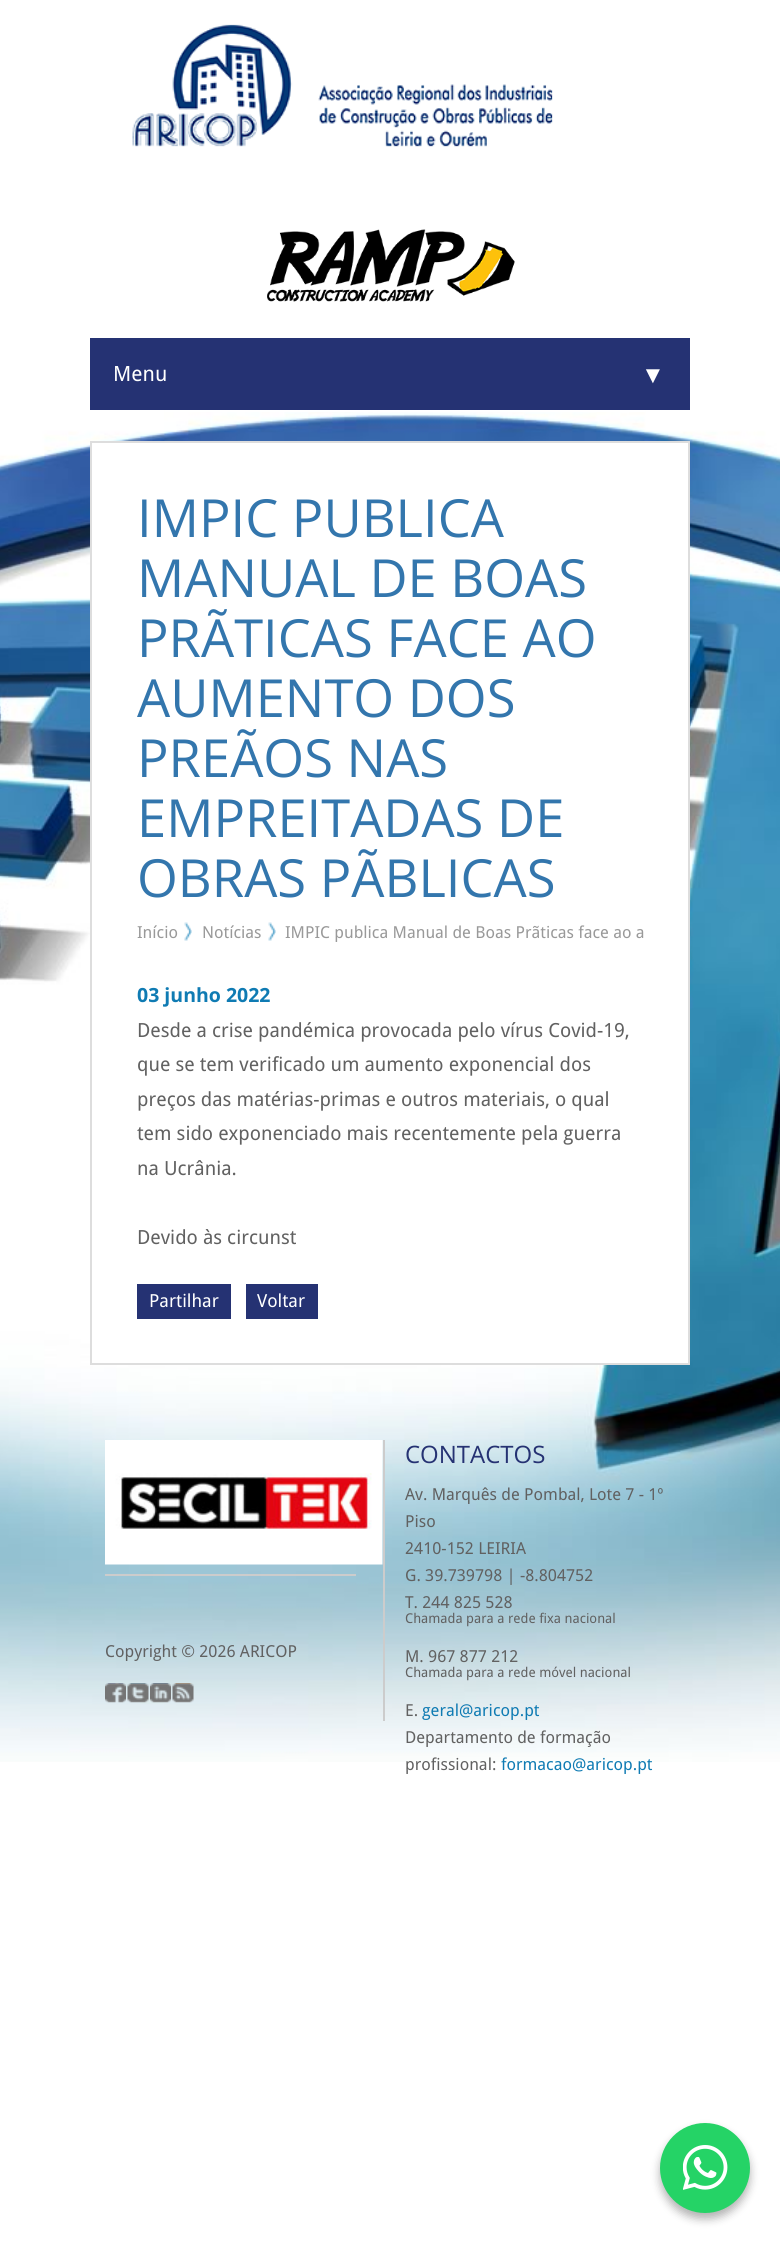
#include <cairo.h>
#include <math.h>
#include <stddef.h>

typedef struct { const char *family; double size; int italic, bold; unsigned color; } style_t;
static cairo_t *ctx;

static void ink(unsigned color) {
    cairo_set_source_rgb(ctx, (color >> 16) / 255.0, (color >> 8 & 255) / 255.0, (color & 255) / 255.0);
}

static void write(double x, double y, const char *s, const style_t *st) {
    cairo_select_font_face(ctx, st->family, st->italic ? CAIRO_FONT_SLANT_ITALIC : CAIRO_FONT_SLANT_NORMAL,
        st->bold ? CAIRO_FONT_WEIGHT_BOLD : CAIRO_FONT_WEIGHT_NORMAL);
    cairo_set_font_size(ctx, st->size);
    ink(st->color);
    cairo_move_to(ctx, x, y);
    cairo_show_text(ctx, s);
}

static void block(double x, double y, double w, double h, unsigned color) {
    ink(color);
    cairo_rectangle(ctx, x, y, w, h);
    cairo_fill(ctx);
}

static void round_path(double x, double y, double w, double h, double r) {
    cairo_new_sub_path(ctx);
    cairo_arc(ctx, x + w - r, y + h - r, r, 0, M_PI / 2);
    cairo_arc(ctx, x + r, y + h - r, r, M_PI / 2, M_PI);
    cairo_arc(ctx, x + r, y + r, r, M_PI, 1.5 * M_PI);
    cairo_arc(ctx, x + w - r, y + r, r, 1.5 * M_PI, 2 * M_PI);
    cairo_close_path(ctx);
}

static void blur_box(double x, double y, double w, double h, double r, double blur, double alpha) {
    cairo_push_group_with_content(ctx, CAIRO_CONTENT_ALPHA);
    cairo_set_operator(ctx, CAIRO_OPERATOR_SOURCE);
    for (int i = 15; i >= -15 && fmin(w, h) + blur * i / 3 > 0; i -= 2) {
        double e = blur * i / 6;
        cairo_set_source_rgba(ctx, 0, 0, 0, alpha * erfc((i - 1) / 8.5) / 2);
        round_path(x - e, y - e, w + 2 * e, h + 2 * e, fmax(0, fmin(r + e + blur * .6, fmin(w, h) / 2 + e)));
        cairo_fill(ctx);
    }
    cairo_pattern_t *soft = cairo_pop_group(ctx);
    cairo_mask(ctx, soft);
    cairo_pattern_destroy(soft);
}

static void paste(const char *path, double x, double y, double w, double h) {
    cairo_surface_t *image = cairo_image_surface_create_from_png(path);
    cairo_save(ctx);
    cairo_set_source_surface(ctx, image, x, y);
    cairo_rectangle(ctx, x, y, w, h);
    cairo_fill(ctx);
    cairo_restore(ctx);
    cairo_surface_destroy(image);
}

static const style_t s1 = {"Droid Sans", 21, 0, 0, 0xffffff};
static const style_t s2 = {"Liberation Sans", 24, 1, 0, 0xffffff};
static const style_t s3 = {"Open Sans", 52.5, 0, 0, 0x3376ad};
static const style_t s4 = {"Droid Sans", 16.5, 0, 0, 0x999999};
static const style_t s5 = {"Open Sans", 19.5, 0, 1, 0x0f7bb3};
static const style_t s6 = {"Droid Sans", 19.5, 0, 0, 0x616161};
static const style_t s7 = {"Droid Sans", 18, 0, 0, 0xffffff};
static const style_t s8 = {"Droid Sans", 16.5, 0, 0, 0x616161};
static const style_t s9 = {"Open Sans", 24, 0, 0, 0x253273};
static const style_t s10 = {"Droid Sans", 13.5, 0, 0, 0x616161};
static const style_t s11 = {"Droid Sans", 16.5, 0, 0, 0x0f7bb3};

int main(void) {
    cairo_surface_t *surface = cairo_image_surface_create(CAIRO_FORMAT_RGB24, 780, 2242);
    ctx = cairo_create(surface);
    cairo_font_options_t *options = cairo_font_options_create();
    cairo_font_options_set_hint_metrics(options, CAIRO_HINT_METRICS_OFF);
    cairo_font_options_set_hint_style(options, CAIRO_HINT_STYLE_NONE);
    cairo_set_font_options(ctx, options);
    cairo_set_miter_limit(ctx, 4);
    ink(0xffffff);
    cairo_paint(ctx);
    paste("pic1.png", 0, 408, 780, 1354);
    paste("pic2.png", 132, 24, 421, 123);
    paste("pic3.png", 267, 229, 248, 73);
    block(90, 338, 600, 72, 0x253273);
    block(165, 410, 480, 2, 0xffffff);
    write(113, 381, "Menu", &s1);
    write(641, 383, "▼", &s2);
    cairo_rectangle(ctx, 91, 442, 598, 922);
    cairo_fill_preserve(ctx);
    ink(0xdddddd);
    cairo_stroke(ctx);
    write(137, 537, "IMPIC PUBLICA", &s3);
    write(137, 597, "MANUAL DE BOAS", &s3);
    write(137, 657, "PRÃTICAS FACE AO", &s3);
    write(137, 717, "AUMENTO DOS", &s3);
    write(137, 777, "PREÃOS NAS", &s3);
    write(137, 837, "EMPREITADAS DE", &s3);
    write(137, 897, "OBRAS PÃBLICAS", &s3);
    paste("pic4.png", 184, 922, 8, 19);
    write(137, 938, "Início", &s4);
    paste("pic4.png", 268, 922, 8, 19);
    write(202, 938, "Notícias", &s4);
    write(285, 938, "IMPIC publica Manual de Boas Prãticas face ao a", &s4);
    write(137, 1002, "03 junho 2022", &s5);
    write(137, 1037, "Desde a crise pandémica provocada pelo vírus Covid-19,", &s6);
    write(137, 1071, "que se tem verificado um aumento exponencial dos", &s6);
    write(137, 1106, "preços das matérias-primas e outros materiais, o qual", &s6);
    write(137, 1140, "tem sido exponenciado mais recentemente pela guerra", &s6);
    write(137, 1175, "na Ucrânia.", &s6);
    write(137, 1244, "Devido às circunst", &s6);
    block(137, 1284, 94, 35, 0x253273);
    write(149, 1307, "Partilhar", &s7);
    block(246, 1284, 72, 35, 0x253273);
    write(257, 1307, "Voltar", &s7);
    block(383, 1440, 2, 281, 0xcccccc);
    paste("pic5.png", 105, 1440, 278, 125);
    block(105, 1574, 251, 2, 0xcccccc);
    write(105, 1657, "Copyright © 2026 ARICOP", &s8);
    paste("pic6.png", 105, 1683, 21, 20);
    paste("pic7.png", 127, 1683, 22, 20);
    paste("pic8.png", 150, 1683, 21, 20);
    paste("pic9.png", 172, 1683, 22, 20);
    write(405, 1463, "CONTACTOS", &s9);
    write(405, 1500, "Av. Marquês de Pombal, Lote 7 - 1º", &s8);
    write(405, 1527, "Piso", &s8);
    write(405, 1554, "2410-152 LEIRIA", &s8);
    write(405, 1581, "G. 39.739798 | -8.804752", &s8);
    write(405, 1608, "T. 244 825 528", &s8);
    write(405, 1623, "Chamada para a rede fixa nacional", &s10);
    write(405, 1662, "M. 967 877 212", &s8);
    write(405, 1677, "Chamada para a rede móvel nacional", &s10);
    write(405, 1716, "E.", &s8);
    write(422, 1716, "geral@aricop.pt", &s11);
    write(405, 1743, "Departamento de formação", &s8);
    write(405, 1770, "profissional:", &s8);
    write(501, 1770, "formacao@aricop.pt", &s11);
    ink(0x000000);
    blur_box(660, 2129, 90, 90, 45, 4.5, 0.3);
    ink(0x25d366);
    cairo_arc(ctx, 705, 2168, 45, 0, 2 * M_PI);
    cairo_fill(ctx);
    paste("pic10.png", 683, 2145, 45, 45);
    cairo_surface_write_to_png(surface, "screenshot.png");
    cairo_font_options_destroy(options);
    cairo_destroy(ctx);
    cairo_surface_destroy(surface);
    return 0;
}
